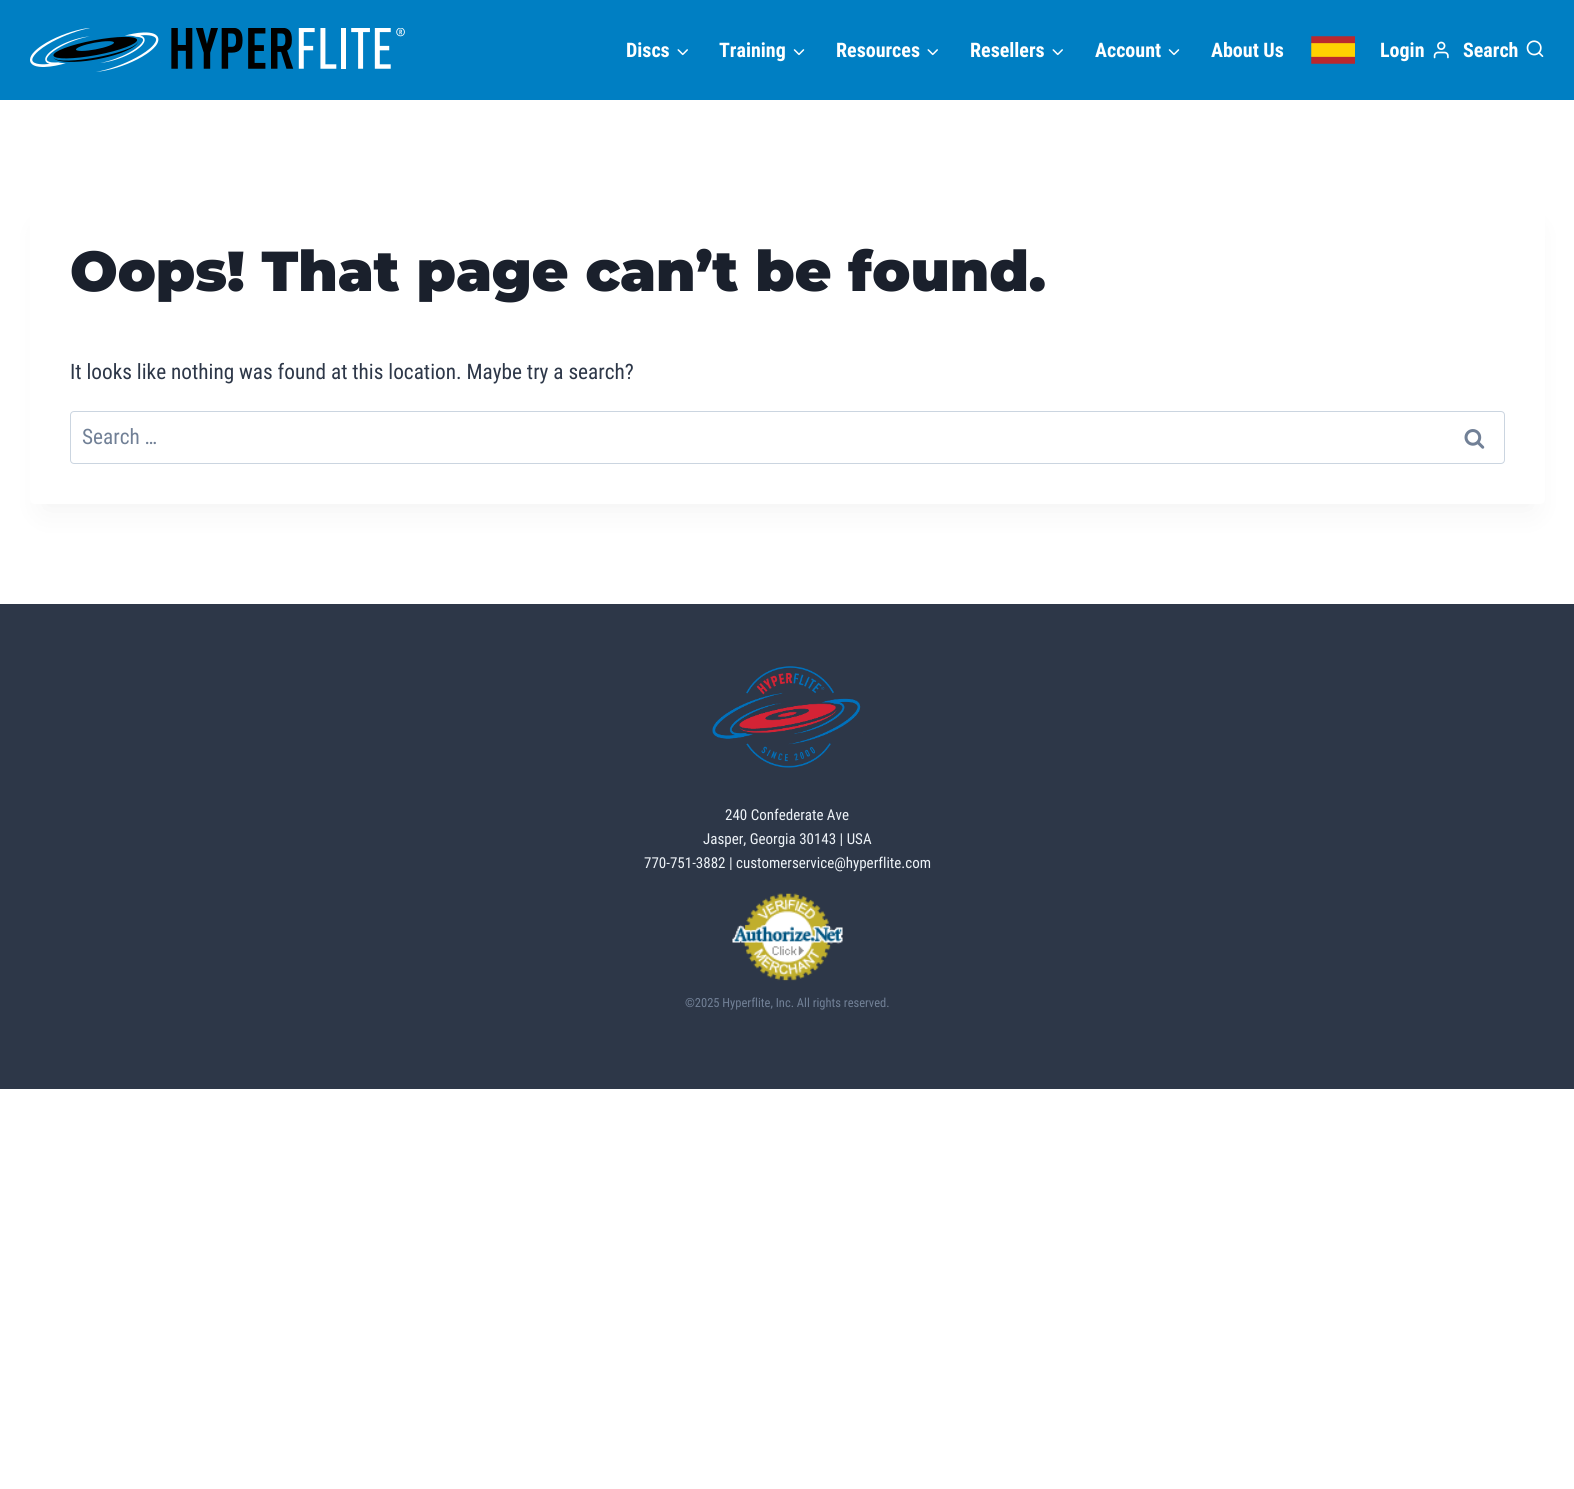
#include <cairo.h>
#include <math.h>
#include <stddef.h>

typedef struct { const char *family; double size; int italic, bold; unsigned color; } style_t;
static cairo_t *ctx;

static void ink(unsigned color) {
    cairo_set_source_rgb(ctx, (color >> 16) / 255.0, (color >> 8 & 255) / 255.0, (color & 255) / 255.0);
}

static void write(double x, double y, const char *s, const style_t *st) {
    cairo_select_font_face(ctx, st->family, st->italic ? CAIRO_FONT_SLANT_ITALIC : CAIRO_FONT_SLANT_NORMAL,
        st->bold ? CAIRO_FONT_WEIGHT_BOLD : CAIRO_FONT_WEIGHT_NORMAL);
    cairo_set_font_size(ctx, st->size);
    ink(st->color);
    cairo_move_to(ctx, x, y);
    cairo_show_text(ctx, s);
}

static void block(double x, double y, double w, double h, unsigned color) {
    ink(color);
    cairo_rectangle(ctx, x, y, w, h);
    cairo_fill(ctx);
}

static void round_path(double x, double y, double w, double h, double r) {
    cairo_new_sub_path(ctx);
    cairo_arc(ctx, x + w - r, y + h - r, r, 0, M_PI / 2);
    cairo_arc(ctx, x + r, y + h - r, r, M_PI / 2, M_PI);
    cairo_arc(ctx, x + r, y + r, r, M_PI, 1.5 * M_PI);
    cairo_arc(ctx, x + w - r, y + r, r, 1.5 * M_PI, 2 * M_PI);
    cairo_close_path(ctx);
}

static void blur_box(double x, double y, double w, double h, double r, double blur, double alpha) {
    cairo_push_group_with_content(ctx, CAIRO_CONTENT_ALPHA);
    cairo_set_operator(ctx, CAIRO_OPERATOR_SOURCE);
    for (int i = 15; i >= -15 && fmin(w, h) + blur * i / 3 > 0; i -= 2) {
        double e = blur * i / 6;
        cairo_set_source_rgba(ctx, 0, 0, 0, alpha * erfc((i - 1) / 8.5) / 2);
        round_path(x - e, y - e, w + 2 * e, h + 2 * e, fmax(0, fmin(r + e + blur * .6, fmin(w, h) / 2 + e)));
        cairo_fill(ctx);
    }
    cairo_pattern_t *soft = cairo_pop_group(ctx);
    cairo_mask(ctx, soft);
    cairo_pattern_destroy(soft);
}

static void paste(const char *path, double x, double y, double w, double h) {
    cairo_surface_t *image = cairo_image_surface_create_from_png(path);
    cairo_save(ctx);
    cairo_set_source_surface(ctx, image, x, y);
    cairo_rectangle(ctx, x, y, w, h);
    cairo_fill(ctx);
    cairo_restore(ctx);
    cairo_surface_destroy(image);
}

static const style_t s1 = {"Roboto Condensed", 20, 0, 1, 0xffffff};
static const style_t s2 = {"Montserrat Thin", 56.25, 0, 0, 0x1a202c};
static const style_t s3 = {"Roboto Condensed", 21.25, 0, 0, 0x2d3748};
static const style_t s4 = {"Roboto Condensed", 21.25, 0, 0, 0x718096};
static const style_t s5 = {"Roboto Condensed", 15, 0, 0, 0xedf2f7};
static const style_t s6 = {"Roboto Condensed", 12.5, 0, 0, 0x718096};

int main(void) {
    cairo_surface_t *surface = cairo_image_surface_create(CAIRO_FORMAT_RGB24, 1574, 1489);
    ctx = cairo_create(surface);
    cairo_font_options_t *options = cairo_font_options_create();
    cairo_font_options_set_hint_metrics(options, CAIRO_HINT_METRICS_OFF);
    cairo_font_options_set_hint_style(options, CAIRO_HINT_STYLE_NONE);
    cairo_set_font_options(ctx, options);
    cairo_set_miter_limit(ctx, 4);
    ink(0xffffff);
    cairo_paint(ctx);
    block(0, 0, 1574, 100, 0x007fc3);
    paste("pic1.png", 30, 28, 375, 44);
    write(626, 57, "Discs", &s1);
    paste("pic2.png", 677, 49, 11, 7);
    write(719, 57, "Training", &s1);
    paste("pic3.png", 793, 49, 12, 7);
    write(836, 57, "Resources", &s1);
    paste("pic2.png", 927, 49, 11, 7);
    write(970, 57, "Resellers", &s1);
    paste("pic2.png", 1052, 49, 11, 7);
    write(1095, 57, "Account", &s1);
    paste("pic3.png", 1168, 49, 12, 7);
    write(1211, 57, "About Us", &s1);
    paste("pic4.png", 1311, 36, 44, 28);
    write(1380, 57, "Login", &s1);
    paste("pic5.png", 1433, 41, 16, 18);
    write(1463, 57, "Search", &s1);
    paste("pic6.png", 1526, 40, 18, 17);
    ink(0x000000);
    blur_box(43, 231, 1490, 279, 0, 15.5, 0.05);
    ink(0xffffff);
    round_path(30, 200, 1515, 304, 5);
    cairo_fill(ctx);
    write(70, 291, "Oops! That page can’t be found.", &s2);
    write(70, 379, "It looks like nothing was found at this location. Maybe try a search?", &s3);
    round_path(70.5, 411.5, 1434, 52, 3.5);
    ink(0xcbd5e0);
    cairo_set_line_width(ctx, 1);
    cairo_stroke(ctx);
    write(82, 444, "Search …", &s4);
    paste("pic7.png", 1464, 429, 21, 20);
    block(0, 604, 1574, 485, 0x2d3748);
    paste("pic8.png", 712, 666, 151, 102);
    write(725, 820, "240 Confederate Ave", &s5);
    write(703, 844, "Jasper, Georgia 30143 | USA", &s5);
    write(644, 868, "770-751-3882 | customerservice@hyperflite.com", &s5);
    paste("pic9.png", 732, 893, 111, 88);
    write(685, 1007, "©2025 Hyperflite, Inc. All rights reserved.", &s6);
    cairo_surface_write_to_png(surface, "screenshot.png");
    cairo_font_options_destroy(options);
    cairo_destroy(ctx);
    cairo_surface_destroy(surface);
    return 0;
}
